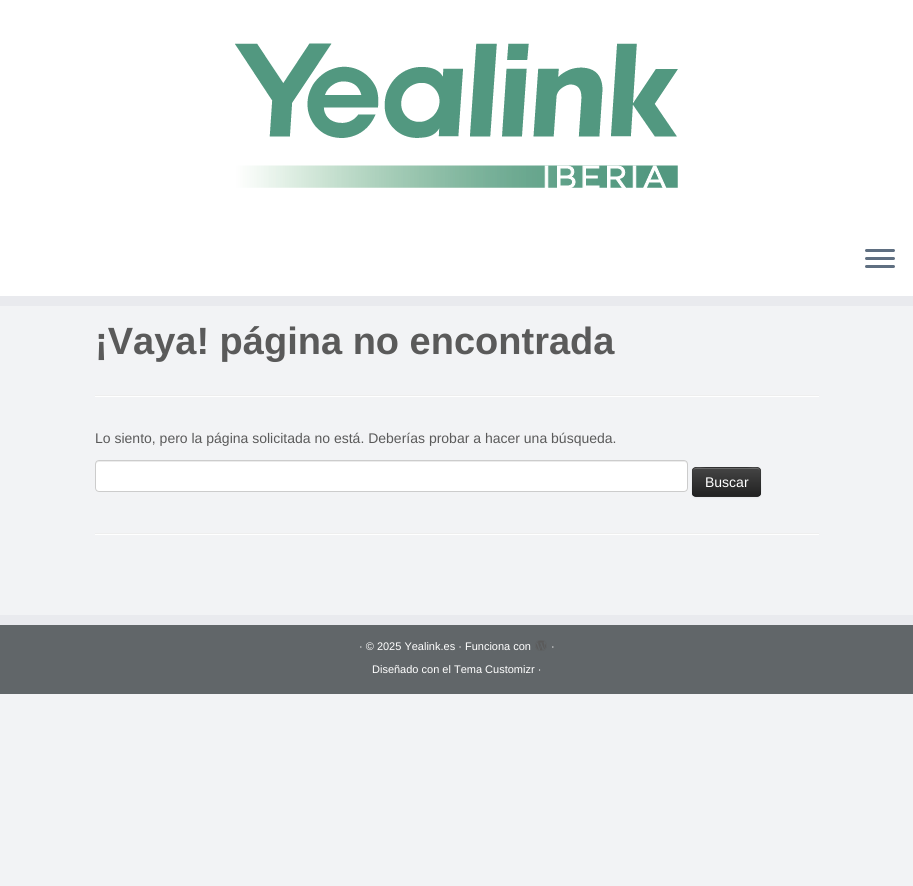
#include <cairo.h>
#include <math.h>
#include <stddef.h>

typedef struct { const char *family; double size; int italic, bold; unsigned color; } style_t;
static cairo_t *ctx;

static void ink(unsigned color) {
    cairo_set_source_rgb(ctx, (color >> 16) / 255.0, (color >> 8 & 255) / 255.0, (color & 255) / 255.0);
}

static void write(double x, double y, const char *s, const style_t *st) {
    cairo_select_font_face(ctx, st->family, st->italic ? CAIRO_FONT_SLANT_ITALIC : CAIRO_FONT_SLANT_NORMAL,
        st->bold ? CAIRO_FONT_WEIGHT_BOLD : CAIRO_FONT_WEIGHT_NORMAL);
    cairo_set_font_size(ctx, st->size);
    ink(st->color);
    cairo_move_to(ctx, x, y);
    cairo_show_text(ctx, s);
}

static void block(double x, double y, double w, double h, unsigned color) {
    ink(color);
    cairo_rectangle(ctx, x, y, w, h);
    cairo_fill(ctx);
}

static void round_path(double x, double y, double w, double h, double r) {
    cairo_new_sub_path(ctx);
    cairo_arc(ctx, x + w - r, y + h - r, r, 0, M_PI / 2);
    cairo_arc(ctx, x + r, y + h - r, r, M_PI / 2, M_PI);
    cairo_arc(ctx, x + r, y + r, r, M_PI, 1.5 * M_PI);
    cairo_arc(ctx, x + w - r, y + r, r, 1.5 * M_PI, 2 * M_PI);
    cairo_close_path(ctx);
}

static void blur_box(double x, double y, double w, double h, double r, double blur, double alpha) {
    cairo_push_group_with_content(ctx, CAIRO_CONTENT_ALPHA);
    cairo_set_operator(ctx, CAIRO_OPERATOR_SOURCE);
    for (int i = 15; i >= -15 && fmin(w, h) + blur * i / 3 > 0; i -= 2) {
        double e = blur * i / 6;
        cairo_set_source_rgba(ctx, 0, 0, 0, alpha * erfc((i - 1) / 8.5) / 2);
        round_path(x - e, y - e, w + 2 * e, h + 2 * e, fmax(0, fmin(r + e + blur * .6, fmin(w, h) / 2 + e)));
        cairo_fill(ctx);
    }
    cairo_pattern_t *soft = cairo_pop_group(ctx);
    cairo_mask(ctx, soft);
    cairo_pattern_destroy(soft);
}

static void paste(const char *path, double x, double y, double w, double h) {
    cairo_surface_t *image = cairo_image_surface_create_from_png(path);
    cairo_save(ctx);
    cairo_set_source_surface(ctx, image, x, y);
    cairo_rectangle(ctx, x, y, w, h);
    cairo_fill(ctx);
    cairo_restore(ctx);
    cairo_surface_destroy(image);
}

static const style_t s1 = {"Liberation Sans", 38, 0, 1, 0x5a5a5a};
static const style_t s2 = {"Liberation Sans", 14, 0, 0, 0x5a5a5a};
static const style_t s3 = {"Liberation Sans", 14, 0, 0, 0xffffff};
static const style_t s4 = {"Liberation Sans", 11, 0, 0, 0xffffff};

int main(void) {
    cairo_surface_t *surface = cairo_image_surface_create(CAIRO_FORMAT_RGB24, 913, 886);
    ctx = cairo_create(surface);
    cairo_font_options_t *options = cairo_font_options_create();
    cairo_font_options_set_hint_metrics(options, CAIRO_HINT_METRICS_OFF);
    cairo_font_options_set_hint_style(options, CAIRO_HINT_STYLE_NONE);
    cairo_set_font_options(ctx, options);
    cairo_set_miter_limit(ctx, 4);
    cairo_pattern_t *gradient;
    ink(0xf2f3f5);
    cairo_paint(ctx);
    block(0, 0, 913, 296, 0xffffff);
    block(0, 296, 913, 10, 0xe9eaee);
    paste("pic1.png", 235, 43, 443, 145);
    ink(0x5f6f81);
    round_path(865, 249, 30, 3, 1.5);
    cairo_fill(ctx);
    round_path(865, 257, 30, 3, 1.5);
    cairo_fill(ctx);
    round_path(865, 265, 30, 3, 1.5);
    cairo_fill(ctx);
    write(95, 354, "¡Vaya! página no encontrada", &s1);
    block(95, 395, 724, 1, 0xeeeeee);
    block(95, 396, 724, 1, 0xffffff);
    write(95, 443, "Lo siento, pero la página solicitada no está. Deberías probar a hacer una búsqueda.", &s2);
    ink(0xffffff);
    round_path(95, 460, 593, 32, 4);
    cairo_fill(ctx);
    ink(0xececec);
    cairo_new_path(ctx);
    cairo_move_to(ctx, 99, 462);
    cairo_line_to(ctx, 684, 462);
    cairo_curve_to(ctx, 686, 462, 687, 463, 687, 465);
    cairo_line_to(ctx, 687, 464);
    cairo_curve_to(ctx, 687, 462, 686, 461, 684, 461);
    cairo_line_to(ctx, 99, 461);
    cairo_curve_to(ctx, 97, 461, 96, 462, 96, 464);
    cairo_line_to(ctx, 96, 465);
    cairo_curve_to(ctx, 96, 463, 97, 462, 99, 462);
    cairo_close_path(ctx);
    cairo_fill(ctx);
    round_path(95.5, 460.5, 592, 31, 3.5);
    ink(0xcccccc);
    cairo_set_line_width(ctx, 1);
    cairo_stroke(ctx);
    ink(0x000000);
    blur_box(692, 468, 69, 30, 4, 1, 0.05);
    ink(0x363636);
    round_path(692, 467, 69, 30, 4);
    cairo_fill(ctx);
    cairo_save(ctx);
    round_path(692, 467, 69, 30, 4);
    cairo_clip(ctx);
    gradient = cairo_pattern_create_linear(727, 468, 727, 496);
    cairo_pattern_add_color_stop_rgba(gradient, 0, 0.267, 0.267, 0.267, 1);
    cairo_pattern_add_color_stop_rgba(gradient, 1, 0.133, 0.133, 0.133, 1);
    cairo_set_source(ctx, gradient);
    cairo_pattern_destroy(gradient);
    cairo_rectangle(ctx, 692, 468, 69, 28);
    cairo_fill(ctx);
    cairo_restore(ctx);
    cairo_set_source_rgba(ctx, 1, 1, 1, 0.2);
    cairo_new_path(ctx);
    cairo_move_to(ctx, 696, 469);
    cairo_line_to(ctx, 757, 469);
    cairo_curve_to(ctx, 759, 469, 760, 470, 760, 472);
    cairo_curve_to(ctx, 760, 465, 751, 468, 747, 468);
    cairo_line_to(ctx, 706, 468);
    cairo_curve_to(ctx, 702, 468, 693, 465, 693, 472);
    cairo_curve_to(ctx, 693, 470, 694, 469, 696, 469);
    cairo_close_path(ctx);
    cairo_fill(ctx);
    cairo_new_path(ctx);
    cairo_move_to(ctx, 759.5, 495.5);
    cairo_line_to(ctx, 757.5, 496.5);
    cairo_line_to(ctx, 695.5, 496.5);
    cairo_line_to(ctx, 693.5, 495.5);
    cairo_set_source_rgba(ctx, 0, 0, 0, 0.25);
    cairo_stroke(ctx);
    cairo_new_path(ctx);
    cairo_move_to(ctx, 693.5, 495.5);
    cairo_curve_to(ctx, 691.5, 493.5, 692.5, 485, 692.5, 482);
    cairo_curve_to(ctx, 692.5, 466, 690, 467.5, 706, 467.5);
    cairo_line_to(ctx, 747, 467.5);
    cairo_curve_to(ctx, 763, 467.5, 760.5, 466, 760.5, 482);
    cairo_curve_to(ctx, 760.5, 485, 761.5, 493.5, 759.5, 495.5);
    cairo_set_source_rgba(ctx, 0, 0, 0, 0.1);
    cairo_stroke(ctx);
    write(705, 487, "Buscar", &s3);
    block(95, 533, 724, 1, 0xeeeeee);
    block(95, 534, 724, 1, 0xffffff);
    block(0, 615, 913, 10, 0xe9eaee);
    block(0, 625, 913, 69, 0x616669);
    write(359, 650, "· © 2025 Yealink.es · Funciona con", &s4);
    paste("pic2.png", 535, 640, 12, 11);
    write(551, 650, "·", &s4);
    write(372, 673, "Diseñado con el Tema Customizr ·", &s4);
    cairo_surface_write_to_png(surface, "screenshot.png");
    cairo_font_options_destroy(options);
    cairo_destroy(ctx);
    cairo_surface_destroy(surface);
    return 0;
}
